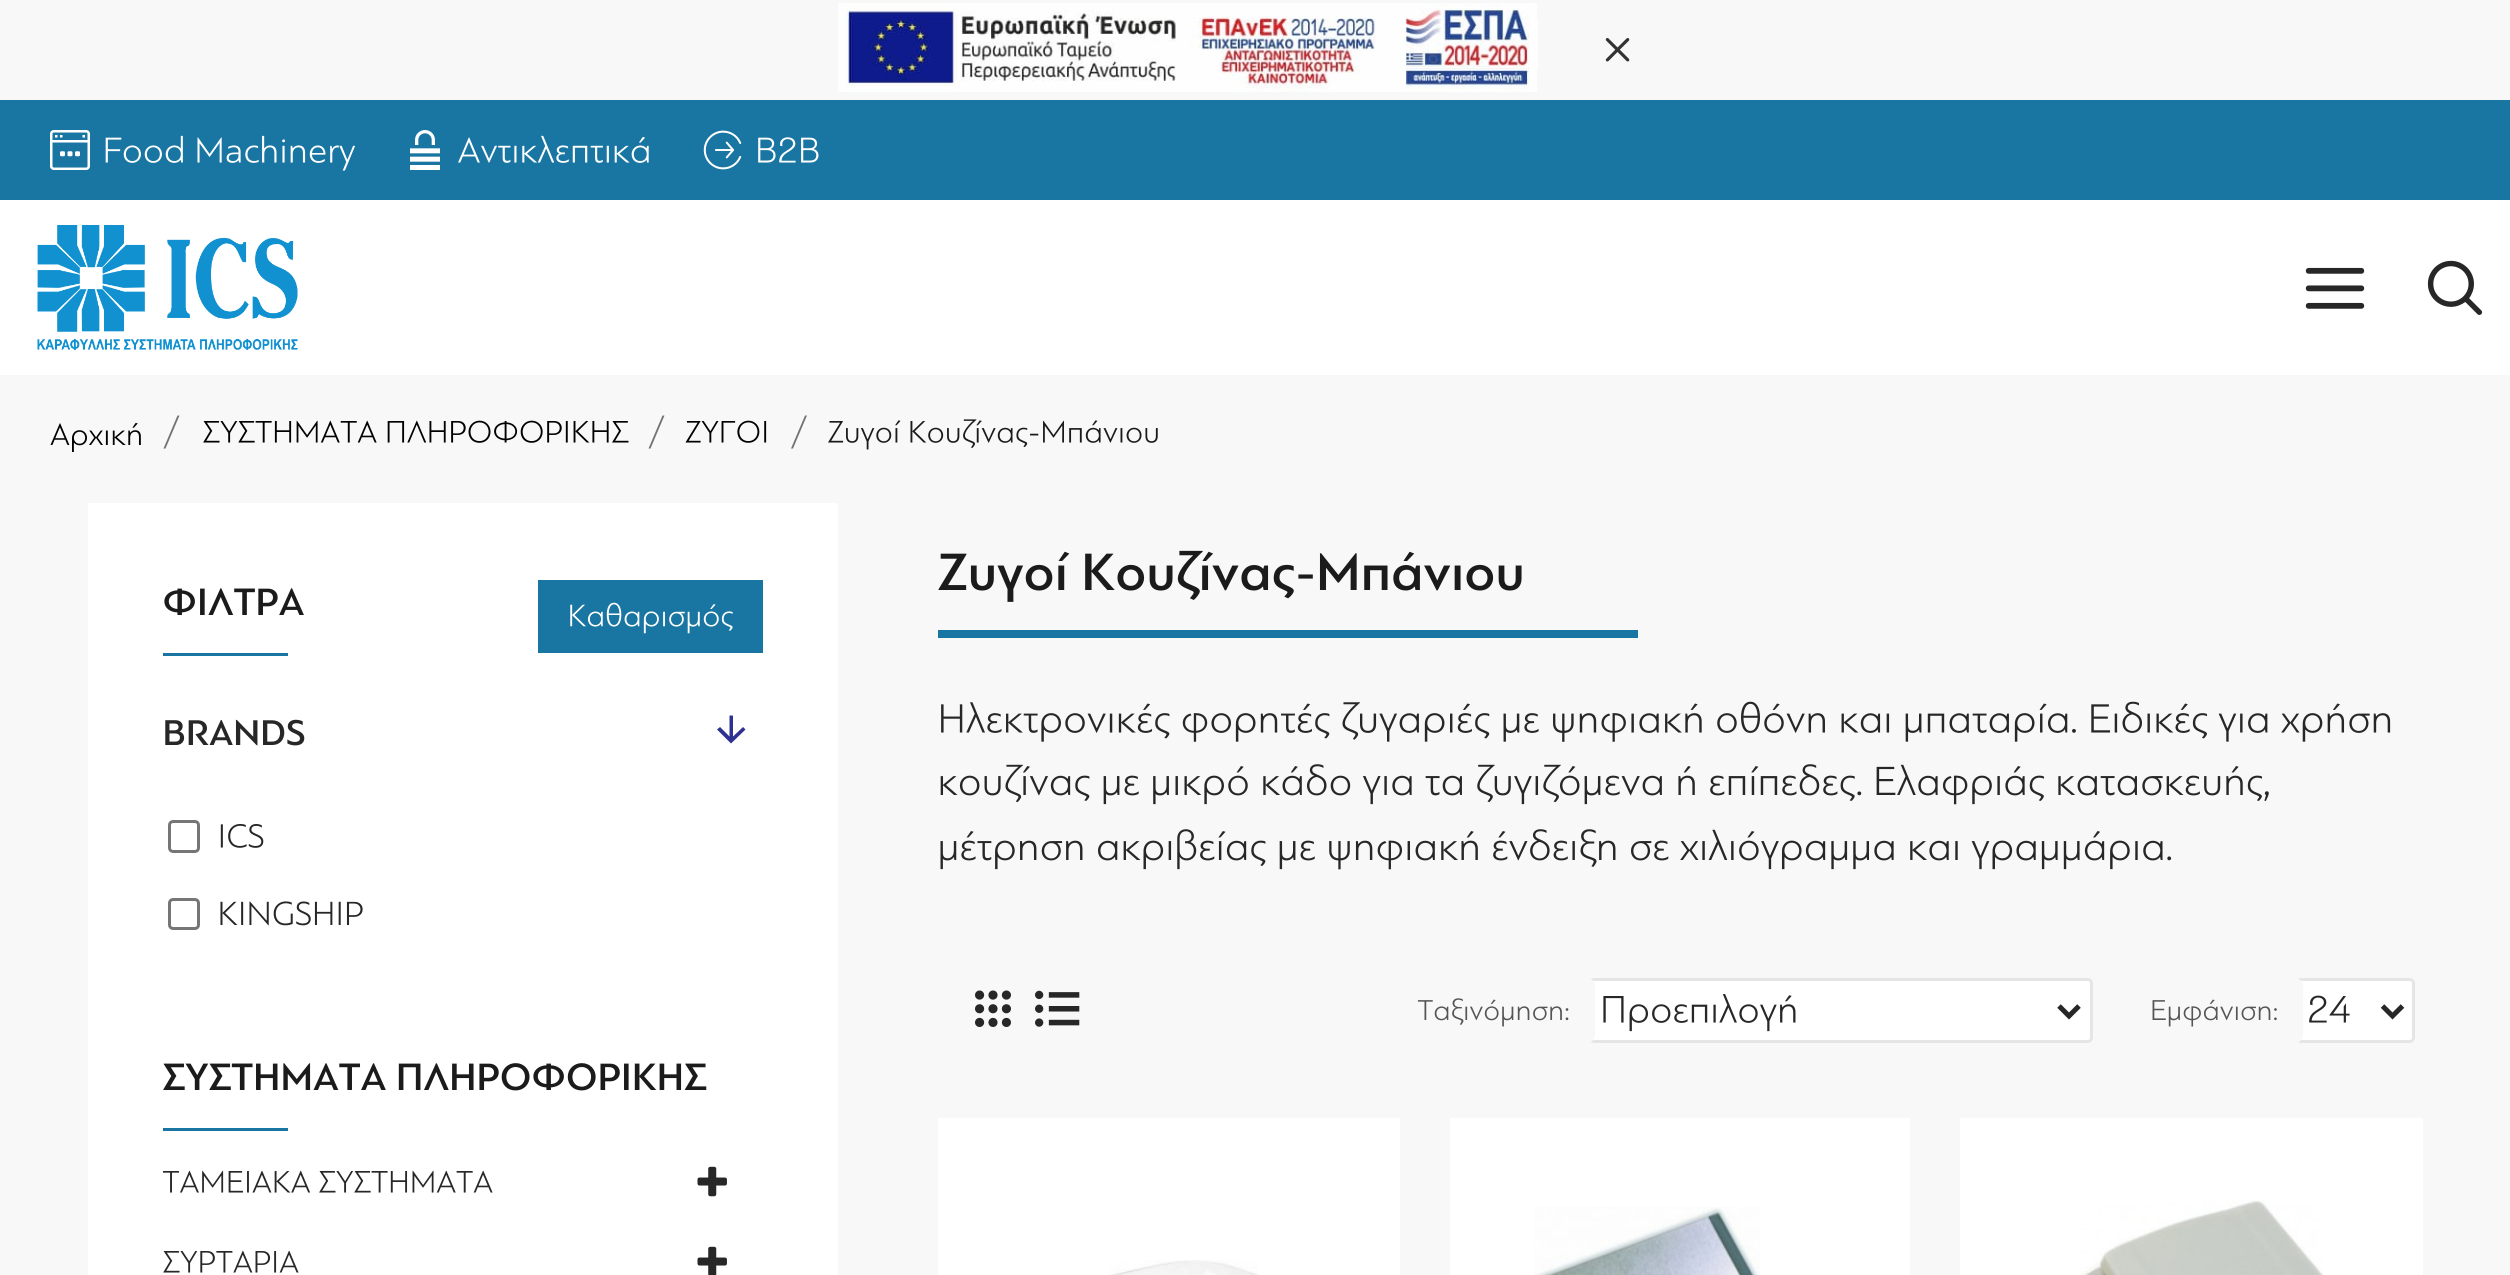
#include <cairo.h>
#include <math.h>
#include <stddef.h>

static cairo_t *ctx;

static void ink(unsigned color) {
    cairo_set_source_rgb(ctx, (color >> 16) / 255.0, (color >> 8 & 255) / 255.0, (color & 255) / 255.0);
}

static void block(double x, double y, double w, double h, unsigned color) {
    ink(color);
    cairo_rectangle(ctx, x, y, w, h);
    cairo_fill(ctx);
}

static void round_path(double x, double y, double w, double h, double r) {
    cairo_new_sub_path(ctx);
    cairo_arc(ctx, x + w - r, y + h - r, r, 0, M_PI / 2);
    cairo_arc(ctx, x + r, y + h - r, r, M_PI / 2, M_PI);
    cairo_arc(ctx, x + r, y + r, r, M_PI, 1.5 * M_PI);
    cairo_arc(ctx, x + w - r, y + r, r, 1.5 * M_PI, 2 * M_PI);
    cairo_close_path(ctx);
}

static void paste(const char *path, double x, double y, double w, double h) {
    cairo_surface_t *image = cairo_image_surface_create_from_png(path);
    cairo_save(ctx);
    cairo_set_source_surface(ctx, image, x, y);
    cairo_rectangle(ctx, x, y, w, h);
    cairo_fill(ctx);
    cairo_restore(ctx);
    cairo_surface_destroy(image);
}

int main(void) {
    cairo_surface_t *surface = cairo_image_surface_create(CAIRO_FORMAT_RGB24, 2510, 1275);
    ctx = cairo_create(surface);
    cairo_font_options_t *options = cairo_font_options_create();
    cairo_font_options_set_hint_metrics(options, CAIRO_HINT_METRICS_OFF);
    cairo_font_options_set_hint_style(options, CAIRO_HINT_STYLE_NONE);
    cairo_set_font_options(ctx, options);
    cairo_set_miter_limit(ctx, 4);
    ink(0xf8f8f8);
    cairo_paint(ctx);
    paste("pic1.png", 838, 3, 699, 89);
    block(1537, 20, 1, 48, 0xffffff);
    paste("pic2.png", 1605, 38, 25, 24);
    block(0, 100, 2510, 100, 0x1975a2);
    paste("pic3.png", 50, 130, 40, 40);
    paste("pic4.png", 105, 135, 250, 36);
    paste("pic5.png", 410, 130, 30, 40);
    paste("pic6.png", 458, 135, 191, 28);
    paste("pic7.png", 703, 130, 39, 40);
    paste("pic8.png", 758, 137, 61, 26);
    block(0, 200, 2510, 175, 0xffffff);
    paste("pic9.png", 37, 225, 261, 125);
    paste("pic10.png", 2305, 267, 60, 42);
    paste("pic11.png", 2427, 260, 56, 55);
    paste("pic12.png", 50, 422, 91, 30);
    ink(0x767272);
    cairo_new_path(ctx);
    cairo_move_to(ctx, 165.5, 448.5);
    cairo_line_to(ctx, 179.5, 415.5);
    cairo_line_to(ctx, 177.5, 415.5);
    cairo_line_to(ctx, 163.5, 448.5);
    cairo_close_path(ctx);
    cairo_fill(ctx);
    paste("pic13.png", 203, 420, 426, 23);
    cairo_new_path(ctx);
    cairo_move_to(ctx, 650.5, 448.5);
    cairo_line_to(ctx, 664.5, 415.5);
    cairo_line_to(ctx, 662.5, 415.5);
    cairo_line_to(ctx, 648.5, 448.5);
    cairo_close_path(ctx);
    cairo_fill(ctx);
    paste("pic14.png", 685, 420, 82, 23);
    cairo_new_path(ctx);
    cairo_move_to(ctx, 793, 448.5);
    cairo_line_to(ctx, 807, 415.5);
    cairo_line_to(ctx, 805, 415.5);
    cairo_line_to(ctx, 791, 448.5);
    cairo_close_path(ctx);
    cairo_fill(ctx);
    paste("pic15.png", 828, 419, 330, 31);
    block(88, 503, 750, 772, 0xffffff);
    paste("pic16.png", 164, 588, 140, 27);
    block(538, 580, 225, 73, 0x1975a2);
    paste("pic17.png", 570, 602, 163, 32);
    block(163, 653, 125, 3, 0x1975a2);
    paste("pic18.png", 165, 719, 140, 27);
    ink(0x2e3192);
    cairo_new_path(ctx);
    cairo_move_to(ctx, 745.5, 729.5);
    cairo_line_to(ctx, 731, 743.5);
    cairo_line_to(ctx, 717, 729.5);
    cairo_line_to(ctx, 720, 727);
    cairo_line_to(ctx, 729.5, 736.5);
    cairo_line_to(ctx, 729.5, 715.5);
    cairo_line_to(ctx, 733, 715.5);
    cairo_line_to(ctx, 733, 736.5);
    cairo_line_to(ctx, 743, 727);
    cairo_close_path(ctx);
    cairo_fill(ctx);
    round_path(169.5, 821.5, 29, 30, 3.5);
    ink(0x767676);
    cairo_set_line_width(ctx, 3);
    cairo_stroke(ctx);
    paste("pic19.png", 220, 824, 44, 24);
    round_path(169.5, 899.5, 29, 29, 3.5);
    cairo_stroke(ctx);
    paste("pic20.png", 220, 901, 143, 25);
    paste("pic21.png", 163, 1063, 544, 28);
    block(163, 1128, 125, 3, 0x1975a2);
    paste("pic22.png", 163, 1170, 330, 23);
    paste("pic23.png", 697, 1166, 30, 31);
    paste("pic24.png", 163, 1250, 136, 23);
    paste("pic25.png", 697, 1246, 30, 29);
    paste("pic26.png", 938, 550, 584, 52);
    block(938, 630, 700, 8, 0x1975a2);
    paste("pic27.png", 941, 701, 1450, 41);
    paste("pic28.png", 940, 764, 1329, 41);
    paste("pic29.png", 940, 829, 1232, 41);
    paste("pic30.png", 975, 990, 36, 37);
    paste("pic31.png", 1035, 990, 45, 37);
    ink(0xffffff);
    round_path(1588, 978, 505, 65, 5);
    cairo_fill(ctx);
    round_path(1589.5, 979.5, 502, 62, 3.5);
    cairo_set_source_rgba(ctx, 0.8, 0.8, 0.8, 0.5);
    cairo_stroke(ctx);
    ink(0xf8f8f8);
    round_path(1393, 978, 202, 65, 8);
    cairo_fill(ctx);
    paste("pic32.png", 1417, 998, 152, 29);
    cairo_new_path(ctx);
    cairo_move_to(ctx, 2059, 1006);
    cairo_line_to(ctx, 2069, 1016);
    cairo_line_to(ctx, 2079, 1006);
    ink(0x272727);
    cairo_set_line_width(ctx, 5);
    cairo_stroke(ctx);
    paste("pic33.png", 1603, 994, 193, 38);
    ink(0xffffff);
    round_path(2295, 978, 120, 65, 5);
    cairo_fill(ctx);
    round_path(2296.5, 979.5, 117, 62, 3.5);
    cairo_set_source_rgba(ctx, 0.8, 0.8, 0.8, 0.5);
    cairo_set_line_width(ctx, 3);
    cairo_stroke(ctx);
    ink(0xf8f8f8);
    round_path(2125, 978, 178, 65, 8);
    cairo_fill(ctx);
    paste("pic34.png", 2152, 999, 125, 28);
    cairo_new_path(ctx);
    cairo_move_to(ctx, 2382.5, 1006);
    cairo_line_to(ctx, 2392.5, 1016);
    cairo_line_to(ctx, 2402.5, 1006);
    ink(0x272727);
    cairo_set_line_width(ctx, 5);
    cairo_stroke(ctx);
    paste("pic35.png", 2309, 995, 41, 28);
    block(938, 1118, 462, 157, 0xffffff);
    paste("pic36.png", 1109, 1260, 150, 15);
    block(1450, 1118, 460, 157, 0xffffff);
    paste("pic37.png", 1534, 1207, 226, 68);
    block(1960, 1118, 463, 157, 0xffffff);
    paste("pic38.png", 2080, 1200, 244, 75);
    cairo_surface_write_to_png(surface, "screenshot.png");
    cairo_font_options_destroy(options);
    cairo_destroy(ctx);
    cairo_surface_destroy(surface);
    return 0;
}
